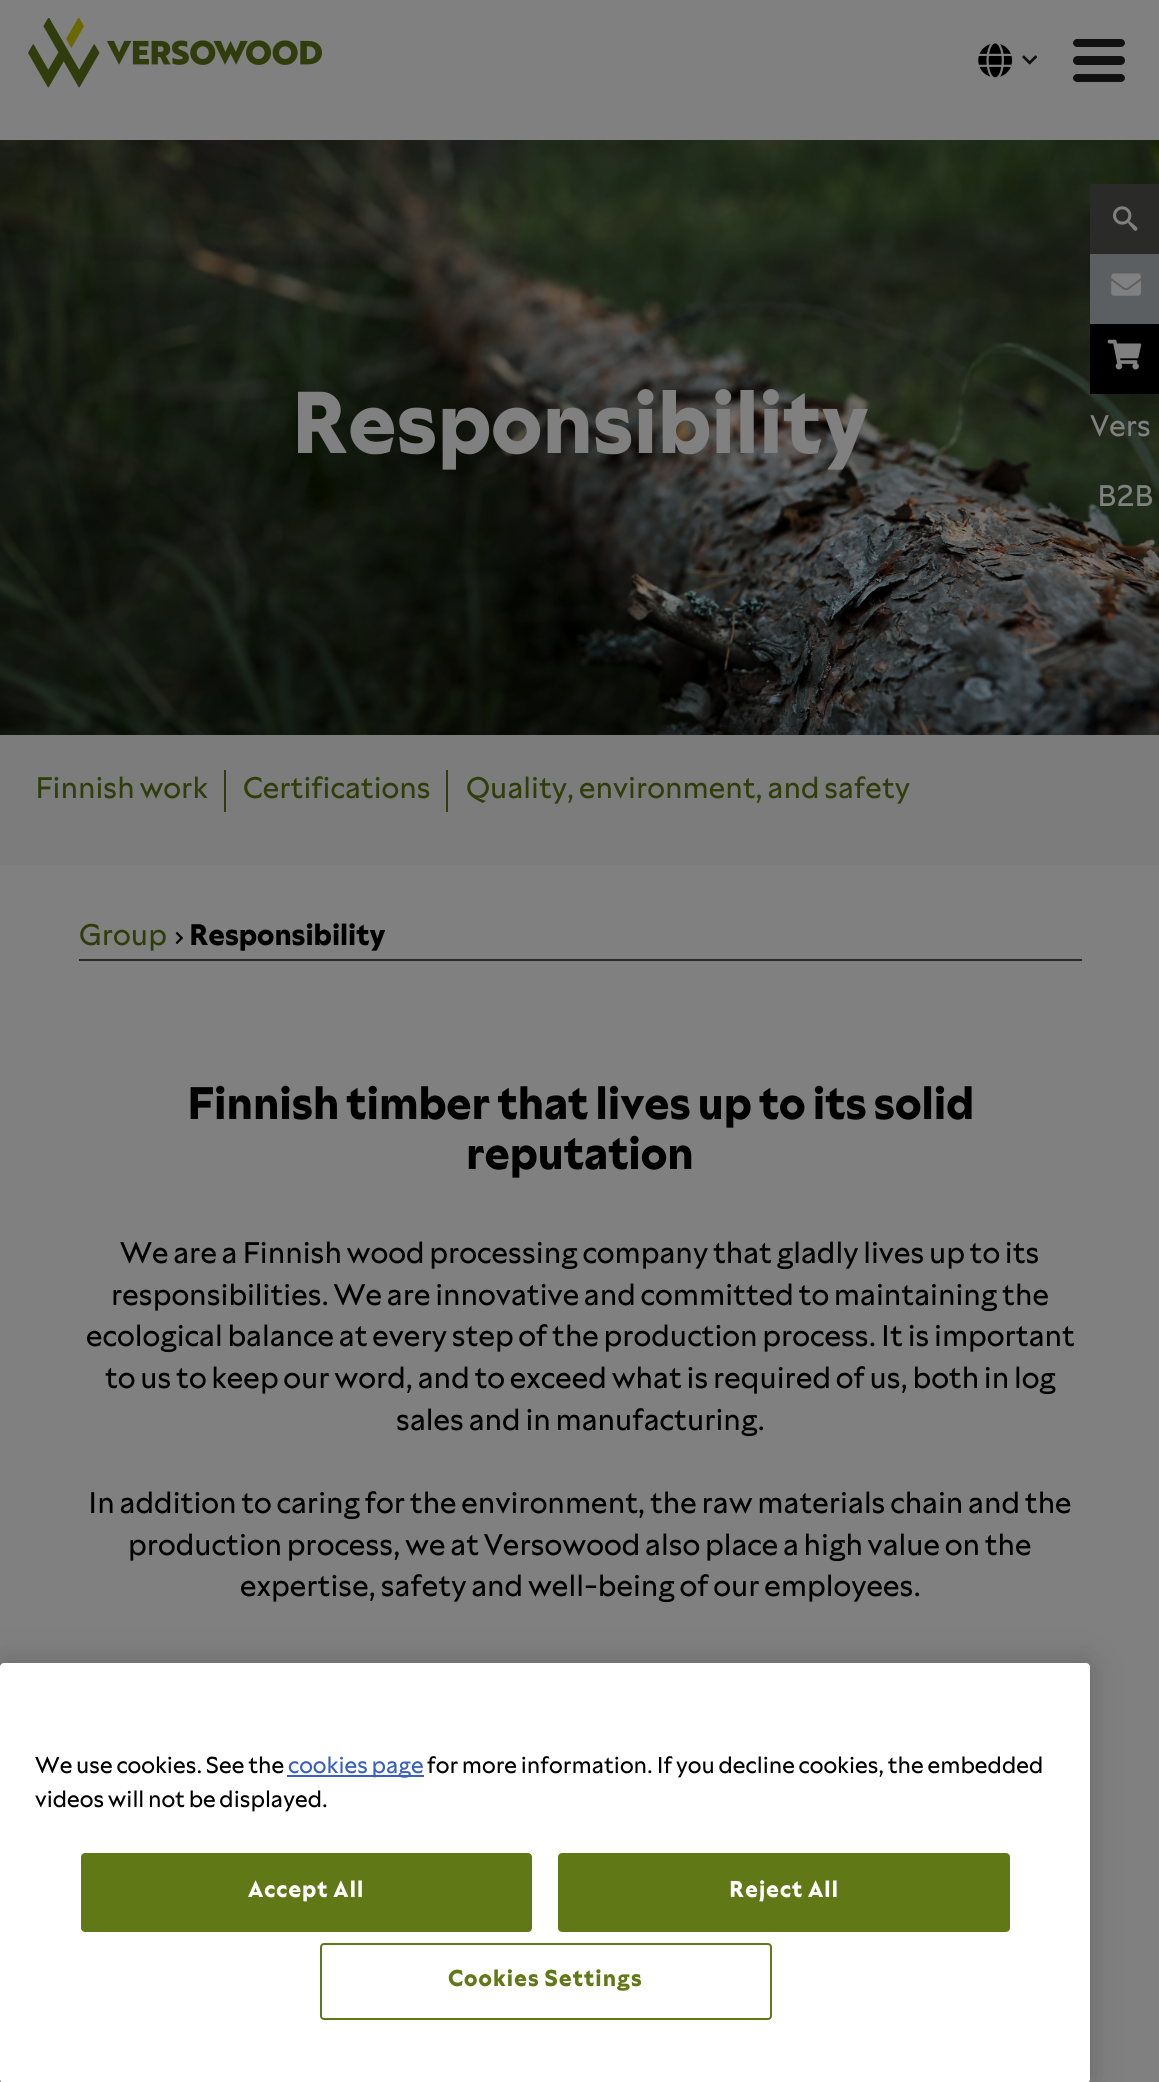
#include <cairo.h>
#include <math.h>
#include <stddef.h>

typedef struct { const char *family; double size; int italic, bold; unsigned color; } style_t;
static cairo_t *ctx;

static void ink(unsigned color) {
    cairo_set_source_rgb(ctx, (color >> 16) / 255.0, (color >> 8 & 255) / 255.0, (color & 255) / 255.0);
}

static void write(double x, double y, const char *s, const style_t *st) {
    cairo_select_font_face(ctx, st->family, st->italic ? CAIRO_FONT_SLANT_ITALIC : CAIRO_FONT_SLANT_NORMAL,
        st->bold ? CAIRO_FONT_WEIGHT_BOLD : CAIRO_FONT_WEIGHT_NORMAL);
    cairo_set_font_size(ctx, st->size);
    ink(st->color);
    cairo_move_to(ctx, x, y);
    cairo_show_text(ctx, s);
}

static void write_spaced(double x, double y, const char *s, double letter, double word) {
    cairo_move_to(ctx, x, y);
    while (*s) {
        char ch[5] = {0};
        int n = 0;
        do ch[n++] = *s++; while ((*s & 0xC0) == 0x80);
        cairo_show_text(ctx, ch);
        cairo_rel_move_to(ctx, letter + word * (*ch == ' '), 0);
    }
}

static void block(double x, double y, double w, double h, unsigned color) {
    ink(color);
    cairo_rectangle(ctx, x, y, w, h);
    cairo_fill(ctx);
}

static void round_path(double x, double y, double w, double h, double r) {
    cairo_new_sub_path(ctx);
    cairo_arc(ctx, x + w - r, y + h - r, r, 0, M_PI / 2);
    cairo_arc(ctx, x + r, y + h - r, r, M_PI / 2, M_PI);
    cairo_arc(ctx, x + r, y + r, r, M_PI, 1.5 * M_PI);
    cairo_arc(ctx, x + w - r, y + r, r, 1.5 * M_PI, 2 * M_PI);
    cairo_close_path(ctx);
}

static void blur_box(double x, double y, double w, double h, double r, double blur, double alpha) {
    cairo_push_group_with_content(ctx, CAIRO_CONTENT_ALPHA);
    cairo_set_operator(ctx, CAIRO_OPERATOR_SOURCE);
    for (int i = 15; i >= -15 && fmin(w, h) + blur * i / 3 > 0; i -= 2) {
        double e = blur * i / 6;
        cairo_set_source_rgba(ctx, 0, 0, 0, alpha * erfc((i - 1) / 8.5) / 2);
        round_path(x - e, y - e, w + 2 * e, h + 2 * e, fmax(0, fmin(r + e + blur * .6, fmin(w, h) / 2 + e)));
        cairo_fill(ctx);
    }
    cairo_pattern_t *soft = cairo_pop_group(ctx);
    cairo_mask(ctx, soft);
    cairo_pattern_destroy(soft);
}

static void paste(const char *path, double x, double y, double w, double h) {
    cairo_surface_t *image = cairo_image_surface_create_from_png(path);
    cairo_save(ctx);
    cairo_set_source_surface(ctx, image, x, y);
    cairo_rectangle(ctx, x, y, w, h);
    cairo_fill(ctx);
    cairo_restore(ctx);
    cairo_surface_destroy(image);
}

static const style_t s1 = {"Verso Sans", 87.5, 0, 1, 0x808080};
static const style_t s2 = {"Verso Sans", 29.75, 0, 0, 0x303d0b};
static const style_t s3 = {"Verso Sans", 29.75, 0, 1, 0x000000};
static const style_t s4 = {"Verso Sans", 45.5, 0, 1, 0x000000};
static const style_t s5 = {"Verso Sans", 29.75, 0, 0, 0x000000};
static const style_t s6 = {"Verso Sans", 29.75, 0, 0, 0x808080};
static const style_t s7 = {"Verso Sans", 22.95, 0, 0, 0x000000};
static const style_t s8 = {"Verso Sans", 22.95, 0, 0, 0x3860be};

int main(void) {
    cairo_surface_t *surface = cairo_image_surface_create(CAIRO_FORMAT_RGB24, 1159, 2082);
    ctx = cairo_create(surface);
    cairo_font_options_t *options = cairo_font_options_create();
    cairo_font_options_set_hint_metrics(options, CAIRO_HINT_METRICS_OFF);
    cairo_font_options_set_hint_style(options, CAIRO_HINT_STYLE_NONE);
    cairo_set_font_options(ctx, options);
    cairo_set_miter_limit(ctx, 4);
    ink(0x808080);
    cairo_paint(ctx);
    paste("pic1.png", 28, 18, 294, 70);
    paste("pic2.png", 978, 43, 35, 35);
    paste("pic3.png", 1022, 55, 15, 10);
    ink(0x111111);
    cairo_new_path(ctx);
    cairo_move_to(ctx, 1077, 39);
    cairo_line_to(ctx, 1099, 39);
    cairo_line_to(ctx, 1099, 47);
    cairo_line_to(ctx, 1077, 47);
    cairo_curve_to(ctx, 1075, 47, 1073, 45, 1073, 43);
    cairo_curve_to(ctx, 1073, 41, 1075, 39, 1077, 39);
    cairo_close_path(ctx);
    cairo_fill(ctx);
    cairo_new_path(ctx);
    cairo_move_to(ctx, 1099, 39);
    cairo_line_to(ctx, 1121, 39);
    cairo_curve_to(ctx, 1123, 39, 1125, 41, 1125, 43);
    cairo_curve_to(ctx, 1125, 45, 1123, 47, 1121, 47);
    cairo_line_to(ctx, 1099, 47);
    cairo_close_path(ctx);
    cairo_fill(ctx);
    cairo_new_path(ctx);
    cairo_move_to(ctx, 1077.5, 56);
    cairo_line_to(ctx, 1099, 56);
    cairo_line_to(ctx, 1099, 65);
    cairo_line_to(ctx, 1077.5, 65);
    cairo_curve_to(ctx, 1075, 65, 1073, 63, 1073, 60.5);
    cairo_curve_to(ctx, 1073, 58, 1075, 56, 1077.5, 56);
    cairo_close_path(ctx);
    cairo_fill(ctx);
    cairo_new_path(ctx);
    cairo_move_to(ctx, 1099, 56);
    cairo_line_to(ctx, 1120.5, 56);
    cairo_curve_to(ctx, 1123, 56, 1125, 58, 1125, 60.5);
    cairo_curve_to(ctx, 1125, 63, 1123, 65, 1120.5, 65);
    cairo_line_to(ctx, 1099, 65);
    cairo_close_path(ctx);
    cairo_fill(ctx);
    cairo_new_path(ctx);
    cairo_move_to(ctx, 1077, 74);
    cairo_line_to(ctx, 1099, 74);
    cairo_line_to(ctx, 1099, 82);
    cairo_line_to(ctx, 1077, 82);
    cairo_curve_to(ctx, 1075, 82, 1073, 80, 1073, 78);
    cairo_curve_to(ctx, 1073, 76, 1075, 74, 1077, 74);
    cairo_close_path(ctx);
    cairo_fill(ctx);
    cairo_new_path(ctx);
    cairo_move_to(ctx, 1099, 74);
    cairo_line_to(ctx, 1121, 74);
    cairo_curve_to(ctx, 1123, 74, 1125, 76, 1125, 78);
    cairo_curve_to(ctx, 1125, 80, 1123, 82, 1121, 82);
    cairo_line_to(ctx, 1099, 82);
    cairo_close_path(ctx);
    cairo_fill(ctx);
    paste("pic4.png", 0, 140, 1159, 595);
    write(291, 453, "Responsibility", &s1);
    block(0, 735, 1159, 130, 0x7c7c7d);
    write(35, 798, "Finnish work", &s2);
    block(224, 770, 2, 42, 0x303d0b);
    write(243, 798, "Certifications", &s2);
    block(446, 770, 2, 42, 0x303d0b);
    write(466, 798, "Quality, environment, and safety", &s2);
    block(79, 959, 1003, 2, 0x2a2a29);
    write(79, 945, "Group", &s2);
    paste("pic5.png", 175, 932, 8, 12);
    write(189, 945, "Responsibility", &s3);
    write(187, 1119, "Finnish timber that lives up to its solid", &s4);
    write(466, 1169, "reputation", &s4);
    write(120, 1263, "We are a Finnish wood processing company that gladly lives up to its", &s5);
    write(111, 1305, "responsibilities. We are innovative and committed to maintaining the", &s5);
    write(86, 1346, "ecological balance at every step of the production process. It is important", &s5);
    write(105, 1388, "to us to keep our word, and to exceed what is required of us, both in log", &s5);
    write(396, 1430, "sales and in manufacturing.", &s5);
    write(88, 1513, "In addition to caring for the environment, the raw materials chain and the", &s5);
    write(128, 1555, "production process, we at Versowood also place a high value on the", &s5);
    write(240, 1596, "expertise, safety and well-being of our employees.", &s5);
    block(1090, 184, 69, 70, 0x2a2a29);
    paste("pic6.png", 1113, 206, 25, 25);
    block(1090, 254, 69, 70, 0x5b5f62);
    paste("pic7.png", 1111, 273, 30, 23);
    block(1090, 324, 69, 70, 0x000000);
    paste("pic8.png", 1107, 339, 35, 31);
    write(1090, 436, "Vers", &s6);
    write(1097, 506, "B2B", &s6);
    ink(0x000000);
    blur_box(0, 1663, 1090, 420, 4, 16, 0.2);
    ink(0xffffff);
    round_path(0, 1663, 1090, 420, 4);
    cairo_fill(ctx);
    write(35, 1773, "We use cookies. See the", &s7);
    block(287, 1775, 137, 2, 0x3860be);
    write(288, 1773, "cookies page", &s8);
    write(427, 1773, "for more information. If you decline cookies, the embedded", &s7);
    write(35, 1807, "videos will not be displayed.", &s7);
    ink(0x607916);
    round_path(82, 1854, 449, 77, 3);
    cairo_fill_preserve(ctx);
    cairo_stroke(ctx);
    cairo_select_font_face(ctx, "Verso Sans", CAIRO_FONT_SLANT_NORMAL, CAIRO_FONT_WEIGHT_BOLD);
    ink(0xffffff);
    write_spaced(248, 1897, "Accept All", 1.1, 0);
    ink(0x607916);
    round_path(559, 1854, 450, 77, 3);
    cairo_fill_preserve(ctx);
    cairo_stroke(ctx);
    ink(0xffffff);
    write_spaced(729, 1897, "Reject All", 1.1, 0);
    round_path(321, 1944, 450, 75, 3);
    ink(0x607916);
    cairo_stroke(ctx);
    write_spaced(448, 1986, "Cookies Settings", 1.1, 0);
    cairo_surface_write_to_png(surface, "screenshot.png");
    cairo_font_options_destroy(options);
    cairo_destroy(ctx);
    cairo_surface_destroy(surface);
    return 0;
}
